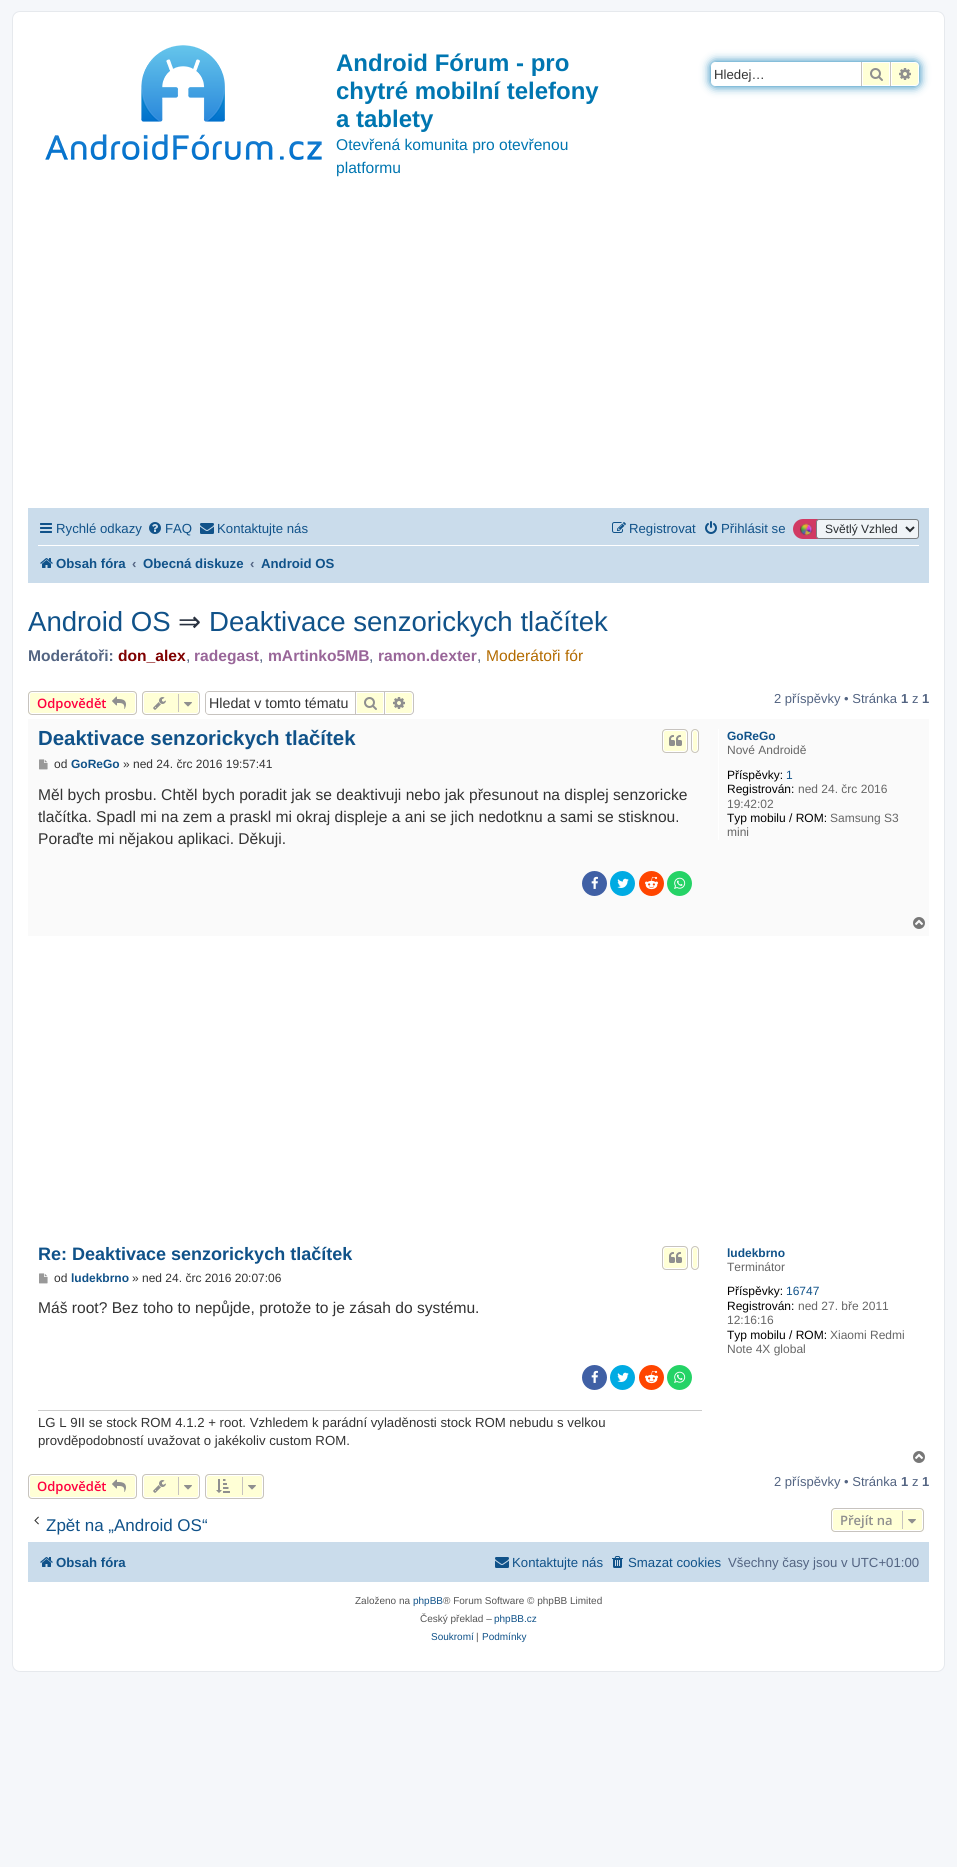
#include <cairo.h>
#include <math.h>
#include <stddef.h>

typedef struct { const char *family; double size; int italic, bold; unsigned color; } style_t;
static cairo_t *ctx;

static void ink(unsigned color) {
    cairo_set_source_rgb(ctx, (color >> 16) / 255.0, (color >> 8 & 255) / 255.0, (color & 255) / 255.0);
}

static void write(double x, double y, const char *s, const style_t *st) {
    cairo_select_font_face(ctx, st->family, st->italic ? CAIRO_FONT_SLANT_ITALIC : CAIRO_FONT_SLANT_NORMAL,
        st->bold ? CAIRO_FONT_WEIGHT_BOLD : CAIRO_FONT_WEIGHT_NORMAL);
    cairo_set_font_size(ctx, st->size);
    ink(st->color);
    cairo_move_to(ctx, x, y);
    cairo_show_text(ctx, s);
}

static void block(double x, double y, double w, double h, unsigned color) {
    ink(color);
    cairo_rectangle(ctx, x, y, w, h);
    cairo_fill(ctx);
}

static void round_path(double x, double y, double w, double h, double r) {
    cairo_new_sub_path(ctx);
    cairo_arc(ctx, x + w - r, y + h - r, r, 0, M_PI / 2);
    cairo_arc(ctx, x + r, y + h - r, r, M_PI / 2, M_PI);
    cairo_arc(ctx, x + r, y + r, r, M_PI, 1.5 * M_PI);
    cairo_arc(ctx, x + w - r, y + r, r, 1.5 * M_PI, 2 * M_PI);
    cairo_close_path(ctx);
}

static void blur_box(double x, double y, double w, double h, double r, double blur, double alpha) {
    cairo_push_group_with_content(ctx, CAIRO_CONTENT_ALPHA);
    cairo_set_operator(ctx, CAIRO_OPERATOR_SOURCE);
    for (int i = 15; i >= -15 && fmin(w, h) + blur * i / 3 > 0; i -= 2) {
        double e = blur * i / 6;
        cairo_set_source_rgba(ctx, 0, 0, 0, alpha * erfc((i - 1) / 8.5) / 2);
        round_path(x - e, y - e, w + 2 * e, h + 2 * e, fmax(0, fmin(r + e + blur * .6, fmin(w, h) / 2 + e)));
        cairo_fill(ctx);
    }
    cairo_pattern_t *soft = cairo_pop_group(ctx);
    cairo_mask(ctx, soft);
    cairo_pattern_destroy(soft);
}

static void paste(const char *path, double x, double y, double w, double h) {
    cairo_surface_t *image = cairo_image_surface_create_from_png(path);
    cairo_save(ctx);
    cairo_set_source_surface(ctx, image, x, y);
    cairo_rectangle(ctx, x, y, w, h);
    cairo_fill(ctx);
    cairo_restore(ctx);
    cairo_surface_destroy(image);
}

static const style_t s1 = {"Liberation Sans", 24, 0, 1, 0x0076b1};
static const style_t s2 = {"Liberation Sans", 15.6, 0, 0, 0x0076b1};
static const style_t s3 = {"Liberation Sans", 13.2, 0, 0, 0x333333};
static const style_t s4 = {"Liberation Sans", 13.2, 0, 0, 0x105289};
static const style_t s5 = {"Liberation Sans", 12, 0, 0, 0x282c2f};
static const style_t s6 = {"Liberation Sans", 13.2, 0, 1, 0x105289};
static const style_t s7 = {"Liberation Sans", 13.2, 0, 1, 0x536482};
static const style_t s8 = {"Liberation Sans", 27.6, 0, 0, 0x105289};
static const style_t s9 = {"DejaVu Sans", 27.6, 0, 0, 0x28313f};
static const style_t s10 = {"Liberation Sans", 15.6, 0, 1, 0x536482};
static const style_t s11 = {"Liberation Sans", 15.6, 0, 1, 0x800000};
static const style_t s12 = {"Liberation Sans", 15.6, 0, 0, 0x536482};
static const style_t s13 = {"Liberation Sans", 15.6, 0, 1, 0x996699};
static const style_t s14 = {"Liberation Sans", 15.6, 0, 0, 0xb36b00};
static const style_t s15 = {"Open Sans SemiBold", 13, 0, 0, 0xff003f};
static const style_t s16 = {"Liberation Sans", 14.25, 0, 0, 0x333333};
static const style_t s17 = {"Liberation Sans", 13, 0, 0, 0x536482};
static const style_t s18 = {"Liberation Sans", 13, 0, 1, 0x536482};
static const style_t s19 = {"Liberation Sans", 20.4, 0, 1, 0x105289};
static const style_t s20 = {"Liberation Sans", 12, 0, 0, 0x333333};
static const style_t s21 = {"Liberation Sans", 12, 0, 1, 0x105289};
static const style_t s22 = {"Liberation Sans", 15.6, 0, 0, 0x333333};
static const style_t s23 = {"Liberation Sans", 12, 0, 0, 0x666666};
static const style_t s24 = {"Liberation Sans", 12, 0, 0, 0x000000};
static const style_t s25 = {"Liberation Sans", 12, 0, 0, 0x105289};
static const style_t s26 = {"Liberation Sans", 18, 0, 1, 0x105289};
static const style_t s27 = {"Liberation Sans", 17, 0, 0, 0x105289};
static const style_t s28 = {"Open Sans SemiBold", 13, 0, 0, 0x8f8f8f};
static const style_t s29 = {"Liberation Sans", 13.2, 0, 0, 0x536482};
static const style_t s30 = {"Liberation Sans", 10, 0, 0, 0x555555};
static const style_t s31 = {"Liberation Sans", 10, 0, 0, 0x105289};

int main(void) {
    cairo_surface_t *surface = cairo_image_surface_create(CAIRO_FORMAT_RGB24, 957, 1867);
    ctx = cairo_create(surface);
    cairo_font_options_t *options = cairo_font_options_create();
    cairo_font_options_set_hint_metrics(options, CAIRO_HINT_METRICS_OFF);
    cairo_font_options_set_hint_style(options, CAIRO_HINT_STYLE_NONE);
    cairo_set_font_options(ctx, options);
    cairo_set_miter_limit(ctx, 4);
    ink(0xf5f7fa);
    cairo_paint(ctx);
    ink(0xffffff);
    round_path(12.5, 11.5, 932, 1660, 7.5);
    cairo_fill_preserve(ctx);
    ink(0xe6e9ed);
    cairo_set_line_width(ctx, 1);
    cairo_stroke(ctx);
    paste("pic1.png", 45, 45, 277, 115);
    write(336, 71, "Android Fórum - pro", &s1);
    write(336, 99, "chytré mobilní telefony", &s1);
    write(336, 127, "a tablety", &s1);
    write(336, 150, "Otevřená komunita pro otevřenou", &s2);
    write(336, 173, "platformu", &s2);
    ink(0x0075b0);
    blur_box(711, 62, 208, 24, 4, 5, 1);
    ink(0xffffff);
    cairo_new_path(ctx);
    cairo_move_to(ctx, 715, 62);
    cairo_line_to(ctx, 861, 62);
    cairo_line_to(ctx, 861, 86);
    cairo_line_to(ctx, 715, 86);
    cairo_curve_to(ctx, 713, 86, 711, 84, 711, 82);
    cairo_line_to(ctx, 711, 66);
    cairo_curve_to(ctx, 711, 64, 713, 62, 715, 62);
    cairo_close_path(ctx);
    cairo_fill(ctx);
    write(714, 79, "Hledej…", &s3);
    ink(0xffffd6);
    cairo_rectangle(ctx, 862.5, 62.5, 27, 23);
    cairo_fill_preserve(ctx);
    ink(0xffffff);
    cairo_stroke(ctx);
    block(890, 62, 1, 24, 0xc7c3bf);
    block(861, 62, 1, 24, 0xc7c3bf);
    paste("pic2.png", 870, 68, 13, 13);
    ink(0xffffd6);
    cairo_new_path(ctx);
    cairo_move_to(ctx, 891.5, 62.5);
    cairo_line_to(ctx, 915, 62.5);
    cairo_curve_to(ctx, 917, 62.5, 918.5, 64, 918.5, 66);
    cairo_line_to(ctx, 918.5, 82);
    cairo_curve_to(ctx, 918.5, 84, 917, 85.5, 915, 85.5);
    cairo_line_to(ctx, 891.5, 85.5);
    cairo_close_path(ctx);
    cairo_fill_preserve(ctx);
    ink(0xffffff);
    cairo_stroke(ctx);
    paste("pic3.png", 899, 68, 12, 12);
    block(28, 508, 901, 75, 0xcadceb);
    paste("pic4.png", 40, 523, 12, 10);
    write(56, 533, "Rychlé odkazy", &s4);
    paste("pic5.png", 149, 522, 12, 12);
    write(165, 533, "FAQ", &s4);
    paste("pic6.png", 200, 523, 14, 11);
    write(217, 533, "Kontaktujte nás", &s4);
    paste("pic7.png", 612, 522, 14, 11);
    write(629, 533, "Registrovat", &s4);
    paste("pic8.png", 705, 521, 12, 13);
    write(721, 533, "Přihlásit se", &s4);
    ink(0xd13a63);
    round_path(793, 519, 126, 20, 10);
    cairo_fill(ctx);
    paste("pic9.png", 800, 523, 13, 13);
    ink(0xf0f4f7);
    round_path(816.5, 519.5, 102, 19, 2.5);
    cairo_fill_preserve(ctx);
    ink(0x7a7e81);
    cairo_stroke(ctx);
    cairo_new_path(ctx);
    cairo_move_to(ctx, 906, 527);
    cairo_line_to(ctx, 910, 531);
    cairo_line_to(ctx, 914, 527);
    ink(0x282c2f);
    cairo_set_line_width(ctx, 2);
    cairo_stroke(ctx);
    write(825, 533, "Světlý Vzhled", &s5);
    block(38, 545, 881, 1, 0xffffff);
    paste("pic10.png", 40, 558, 13, 10);
    write(56, 568, "Obsah fóra", &s6);
    write(132, 568, "‹", &s7);
    write(143, 568, "Obecná diskuze", &s6);
    write(250, 568, "‹", &s7);
    write(261, 568, "Android OS", &s6);
    write(28, 631, "Android OS", &s8);
    write(178, 631, "⇒", &s9);
    write(209, 631, "Deaktivace senzorickych tlačítek", &s8);
    write(28, 661, "Moderátoři:", &s10);
    write(118, 661, "don_alex", &s11);
    write(186, 661, ",", &s12);
    write(194, 661, "radegast", &s13);
    write(259, 661, ",", &s12);
    write(268, 661, "mArtinko5MB", &s13);
    write(369, 661, ",", &s12);
    write(378, 661, "ramon.dexter", &s13);
    write(477, 661, ",", &s12);
    write(486, 661, "Moderátoři fór", &s14);
    ink(0xffffd6);
    round_path(28, 691, 109, 24, 4);
    cairo_fill(ctx);
    round_path(29.5, 692.5, 106, 21, 2.5);
    ink(0xffffff);
    cairo_set_line_width(ctx, 1);
    cairo_stroke(ctx);
    round_path(28.5, 691.5, 108, 23, 3.5);
    ink(0xc7c3bf);
    cairo_stroke(ctx);
    write(37, 708, "Odpovědět", &s15);
    paste("pic11.png", 112, 696, 14, 13);
    ink(0xffffd6);
    round_path(142, 691, 58, 24, 4);
    cairo_fill(ctx);
    round_path(143.5, 692.5, 55, 21, 2.5);
    ink(0xffffff);
    cairo_stroke(ctx);
    round_path(142.5, 691.5, 57, 23, 3.5);
    ink(0xc7c3bf);
    cairo_stroke(ctx);
    paste("pic12.png", 153, 697, 13, 13);
    block(178, 694, 1, 18, 0xc7c3bf);
    paste("pic13.png", 184, 702, 8, 5);
    cairo_set_fill_rule(ctx, CAIRO_FILL_RULE_EVEN_ODD);
    cairo_new_path(ctx);
    cairo_move_to(ctx, 209, 691);
    cairo_line_to(ctx, 355, 691);
    cairo_line_to(ctx, 355, 715);
    cairo_line_to(ctx, 209, 715);
    cairo_curve_to(ctx, 207, 715, 205, 713, 205, 711);
    cairo_line_to(ctx, 205, 695);
    cairo_curve_to(ctx, 205, 693, 207, 691, 209, 691);
    cairo_close_path(ctx);
    cairo_move_to(ctx, 209, 692);
    cairo_line_to(ctx, 355, 692);
    cairo_line_to(ctx, 355, 714);
    cairo_line_to(ctx, 209, 714);
    cairo_curve_to(ctx, 207, 714, 206, 713, 206, 711);
    cairo_line_to(ctx, 206, 695);
    cairo_curve_to(ctx, 206, 693, 207, 692, 209, 692);
    cairo_close_path(ctx);
    cairo_fill(ctx);
    cairo_save(ctx);
    cairo_set_fill_rule(ctx, CAIRO_FILL_RULE_WINDING);
    cairo_rectangle(ctx, 209, 695, 139, 16);
    cairo_clip(ctx);
    write(209, 708, "Hledat v tomto tématu", &s16);
    cairo_restore(ctx);
    block(357, 693, 26, 20, 0xffffd6);
    cairo_rectangle(ctx, 355.5, 691.5, 29, 23);
    ink(0xc7c3bf);
    cairo_stroke(ctx);
    paste("pic2.png", 364, 697, 13, 13);
    ink(0xffffd6);
    cairo_new_path(ctx);
    cairo_move_to(ctx, 385.5, 692.5);
    cairo_line_to(ctx, 410, 692.5);
    cairo_curve_to(ctx, 411.5, 692.5, 412.5, 693.5, 412.5, 695);
    cairo_line_to(ctx, 412.5, 711);
    cairo_curve_to(ctx, 412.5, 712.5, 411.5, 713.5, 410, 713.5);
    cairo_line_to(ctx, 385.5, 713.5);
    cairo_close_path(ctx);
    cairo_fill_preserve(ctx);
    ink(0xffffff);
    cairo_stroke(ctx);
    ink(0xc7c3bf);
    cairo_new_path(ctx);
    cairo_move_to(ctx, 385, 691);
    cairo_line_to(ctx, 410, 691);
    cairo_curve_to(ctx, 412, 691, 414, 693, 414, 695);
    cairo_line_to(ctx, 414, 711);
    cairo_curve_to(ctx, 414, 713, 412, 715, 410, 715);
    cairo_line_to(ctx, 385, 715);
    cairo_close_path(ctx);
    cairo_move_to(ctx, 385, 692);
    cairo_line_to(ctx, 410, 692);
    cairo_curve_to(ctx, 411.5, 692, 413, 693.5, 413, 695);
    cairo_line_to(ctx, 413, 711);
    cairo_curve_to(ctx, 413, 712.5, 411.5, 714, 410, 714);
    cairo_line_to(ctx, 385, 714);
    cairo_close_path(ctx);
    cairo_fill(ctx);
    paste("pic3.png", 393, 697, 12, 12);
    write(774, 703, "2 příspěvky • Stránka", &s17);
    write(901, 703, "1", &s18);
    write(912, 703, "z", &s17);
    write(922, 703, "1", &s18);
    block(28, 719, 901, 217, 0xfafafa);
    write(38, 745, "Deaktivace senzorickych tlačítek", &s19);
    ink(0xffffd6);
    round_path(662, 729, 26, 24, 4);
    cairo_fill(ctx);
    round_path(663.5, 730.5, 23, 21, 2.5);
    ink(0xffffff);
    cairo_stroke(ctx);
    round_path(662.5, 729.5, 25, 23, 3.5);
    ink(0xc7c3bf);
    cairo_stroke(ctx);
    paste("pic14.png", 669, 735, 13, 11);
    ink(0xffffd6);
    round_path(691, 729, 8, 24, 4);
    cairo_fill(ctx);
    round_path(692.5, 730.5, 5, 21, 2.5);
    ink(0xffffff);
    cairo_stroke(ctx);
    round_path(691.5, 729.5, 7, 23, 3.5);
    ink(0xc7c3bf);
    cairo_stroke(ctx);
    paste("pic15.png", 39, 759, 9, 11);
    write(54, 768, "od", &s20);
    write(71, 768, "GoReGo", &s21);
    write(123, 768, "» ned 24. črc 2016 19:57:41", &s20);
    write(38, 800, "Měl bych prosbu. Chtěl bych poradit jak se deaktivuji nebo jak přesunout na displej senzoricke", &s22);
    write(38, 822, "tlačítka. Spadl mi na zem a praskl mi okraj displeje a ani se jich nedotknu a sami se stisknou.", &s22);
    write(38, 844, "Poraďte mi nějakou aplikaci. Děkuji.", &s22);
    ink(0x4060a5);
    cairo_new_path(ctx);
    cairo_arc(ctx, 594.5, 883.5, 12.5, 0, 2 * M_PI);
    cairo_fill(ctx);
    paste("pic16.png", 591, 876, 7, 13);
    ink(0x00abe3);
    cairo_arc(ctx, 622.5, 883.5, 12.5, 0, 2 * M_PI);
    cairo_fill(ctx);
    paste("pic17.png", 617, 878, 12, 10);
    ink(0xff4500);
    cairo_arc(ctx, 651.5, 883.5, 12.5, 0, 2 * M_PI);
    cairo_fill(ctx);
    paste("pic18.png", 645, 876, 13, 14);
    ink(0x25d366);
    cairo_arc(ctx, 679.5, 883.5, 12.5, 0, 2 * M_PI);
    cairo_fill(ctx);
    paste("pic19.png", 674, 877, 12, 12);
    block(718, 729, 1, 111, 0xffffff);
    write(727, 740, "GoReGo", &s21);
    write(727, 754, "Nové Androidě", &s23);
    write(727, 779, "Příspěvky:", &s24);
    write(786, 779, "1", &s25);
    write(727, 793, "Registrován:", &s24);
    write(798, 793, "ned 24. črc 2016", &s23);
    write(727, 808, "19:42:02", &s23);
    write(727, 822, "Typ mobilu / ROM:", &s24);
    write(830, 822, "Samsung S3", &s23);
    write(727, 836, "mini", &s23);
    paste("pic20.png", 913, 917, 12, 12);
    write(38, 1260, "Re: Deaktivace senzorickych tlačítek", &s26);
    ink(0xffffd6);
    round_path(662, 1246, 26, 24, 4);
    cairo_fill(ctx);
    round_path(663.5, 1247.5, 23, 21, 2.5);
    ink(0xffffff);
    cairo_stroke(ctx);
    round_path(662.5, 1246.5, 25, 23, 3.5);
    ink(0xc7c3bf);
    cairo_stroke(ctx);
    paste("pic14.png", 669, 1252, 13, 11);
    ink(0xffffd6);
    round_path(691, 1246, 8, 24, 4);
    cairo_fill(ctx);
    round_path(692.5, 1247.5, 5, 21, 2.5);
    ink(0xffffff);
    cairo_stroke(ctx);
    round_path(691.5, 1246.5, 7, 23, 3.5);
    ink(0xc7c3bf);
    cairo_stroke(ctx);
    paste("pic21.png", 39, 1273, 9, 11);
    write(54, 1282, "od", &s20);
    write(71, 1282, "ludekbrno", &s21);
    write(132, 1282, "» ned 24. črc 2016 20:07:06", &s20);
    write(38, 1313, "Máš root? Bez toho to nepůjde, protože to je zásah do systému.", &s22);
    ink(0x4060a5);
    cairo_new_path(ctx);
    cairo_arc(ctx, 594.5, 1377.5, 12.5, 0, 2 * M_PI);
    cairo_fill(ctx);
    paste("pic16.png", 591, 1370, 7, 13);
    ink(0x00abe3);
    cairo_arc(ctx, 622.5, 1377.5, 12.5, 0, 2 * M_PI);
    cairo_fill(ctx);
    paste("pic17.png", 617, 1372, 12, 10);
    ink(0xff4500);
    cairo_arc(ctx, 651.5, 1377.5, 12.5, 0, 2 * M_PI);
    cairo_fill(ctx);
    paste("pic18.png", 645, 1370, 13, 14);
    ink(0x25d366);
    cairo_arc(ctx, 679.5, 1377.5, 12.5, 0, 2 * M_PI);
    cairo_fill(ctx);
    paste("pic19.png", 674, 1371, 12, 12);
    block(38, 1410, 664, 1, 0xcccccc);
    write(38, 1427, "LG L 9II se stock ROM 4.1.2 + root. Vzhledem k parádní vyladěnosti stock ROM nebudu s velkou", &s3);
    write(38, 1445, "provděpodobností uvažovat o jakékoliv custom ROM.", &s3);
    write(727, 1257, "ludekbrno", &s21);
    write(727, 1271, "Terminátor", &s23);
    write(727, 1295, "Příspěvky:", &s24);
    write(786, 1295, "16747", &s25);
    write(727, 1310, "Registrován:", &s24);
    write(798, 1310, "ned 27. bře 2011", &s23);
    write(727, 1324, "12:16:16", &s23);
    write(727, 1339, "Typ mobilu / ROM:", &s24);
    write(830, 1339, "Xiaomi Redmi", &s23);
    write(727, 1353, "Note 4X global", &s23);
    paste("pic22.png", 913, 1451, 12, 12);
    ink(0xffffd6);
    round_path(28, 1474, 109, 25, 4);
    cairo_fill(ctx);
    round_path(29.5, 1475.5, 106, 22, 2.5);
    ink(0xffffff);
    cairo_stroke(ctx);
    round_path(28.5, 1474.5, 108, 24, 3.5);
    ink(0xc7c3bf);
    cairo_stroke(ctx);
    write(37, 1491, "Odpovědět", &s15);
    paste("pic11.png", 112, 1479, 14, 13);
    ink(0xffffd6);
    round_path(142, 1474, 58, 25, 4);
    cairo_fill(ctx);
    round_path(143.5, 1475.5, 55, 22, 2.5);
    ink(0xffffff);
    cairo_stroke(ctx);
    round_path(142.5, 1474.5, 57, 24, 3.5);
    ink(0xc7c3bf);
    cairo_stroke(ctx);
    paste("pic12.png", 153, 1480, 13, 13);
    block(178, 1477, 1, 18, 0xc7c3bf);
    paste("pic13.png", 184, 1485, 8, 5);
    ink(0xffffd6);
    round_path(205, 1474, 59, 25, 4);
    cairo_fill(ctx);
    round_path(206.5, 1475.5, 56, 22, 2.5);
    ink(0xffffff);
    cairo_stroke(ctx);
    round_path(205.5, 1474.5, 58, 24, 3.5);
    ink(0xc7c3bf);
    cairo_stroke(ctx);
    paste("pic23.png", 216, 1479, 14, 14);
    block(242, 1477, 1, 18, 0xc7c3bf);
    paste("pic13.png", 248, 1485, 8, 5);
    write(774, 1486, "2 příspěvky • Stránka", &s17);
    write(901, 1486, "1", &s18);
    write(912, 1486, "z", &s17);
    write(922, 1486, "1", &s18);
    paste("pic24.png", 34, 1516, 5, 9);
    write(46, 1531, "Zpět na „Android OS“", &s27);
    ink(0xffffd6);
    round_path(831, 1508, 93, 24, 4);
    cairo_fill(ctx);
    round_path(832.5, 1509.5, 90, 21, 2.5);
    ink(0xffffff);
    cairo_stroke(ctx);
    round_path(831.5, 1508.5, 92, 23, 3.5);
    ink(0xc7c3bf);
    cairo_stroke(ctx);
    write(840, 1525, "Přejít na", &s28);
    block(902, 1511, 1, 18, 0xc7c3bf);
    paste("pic13.png", 908, 1519, 8, 5);
    block(28, 1542, 901, 40, 0xcadceb);
    paste("pic10.png", 40, 1557, 13, 10);
    write(56, 1567, "Obsah fóra", &s6);
    paste("pic6.png", 495, 1557, 14, 11);
    write(512, 1567, "Kontaktujte nás", &s4);
    paste("pic25.png", 612, 1556, 11, 12);
    write(628, 1567, "Smazat cookies", &s4);
    write(728, 1567, "Všechny časy jsou v UTC+01:00", &s29);
    write(355, 1604, "Založeno na", &s30);
    write(413, 1604, "phpBB", &s31);
    write(443, 1604, "® Forum Software © phpBB Limited", &s30);
    write(420, 1622, "Český překlad –", &s30);
    write(494, 1622, "phpBB.cz", &s31);
    write(431, 1640, "Soukromí", &s31);
    write(476, 1640, "|", &s30);
    write(482, 1640, "Podmínky", &s31);
    cairo_surface_write_to_png(surface, "screenshot.png");
    cairo_font_options_destroy(options);
    cairo_destroy(ctx);
    cairo_surface_destroy(surface);
    return 0;
}
